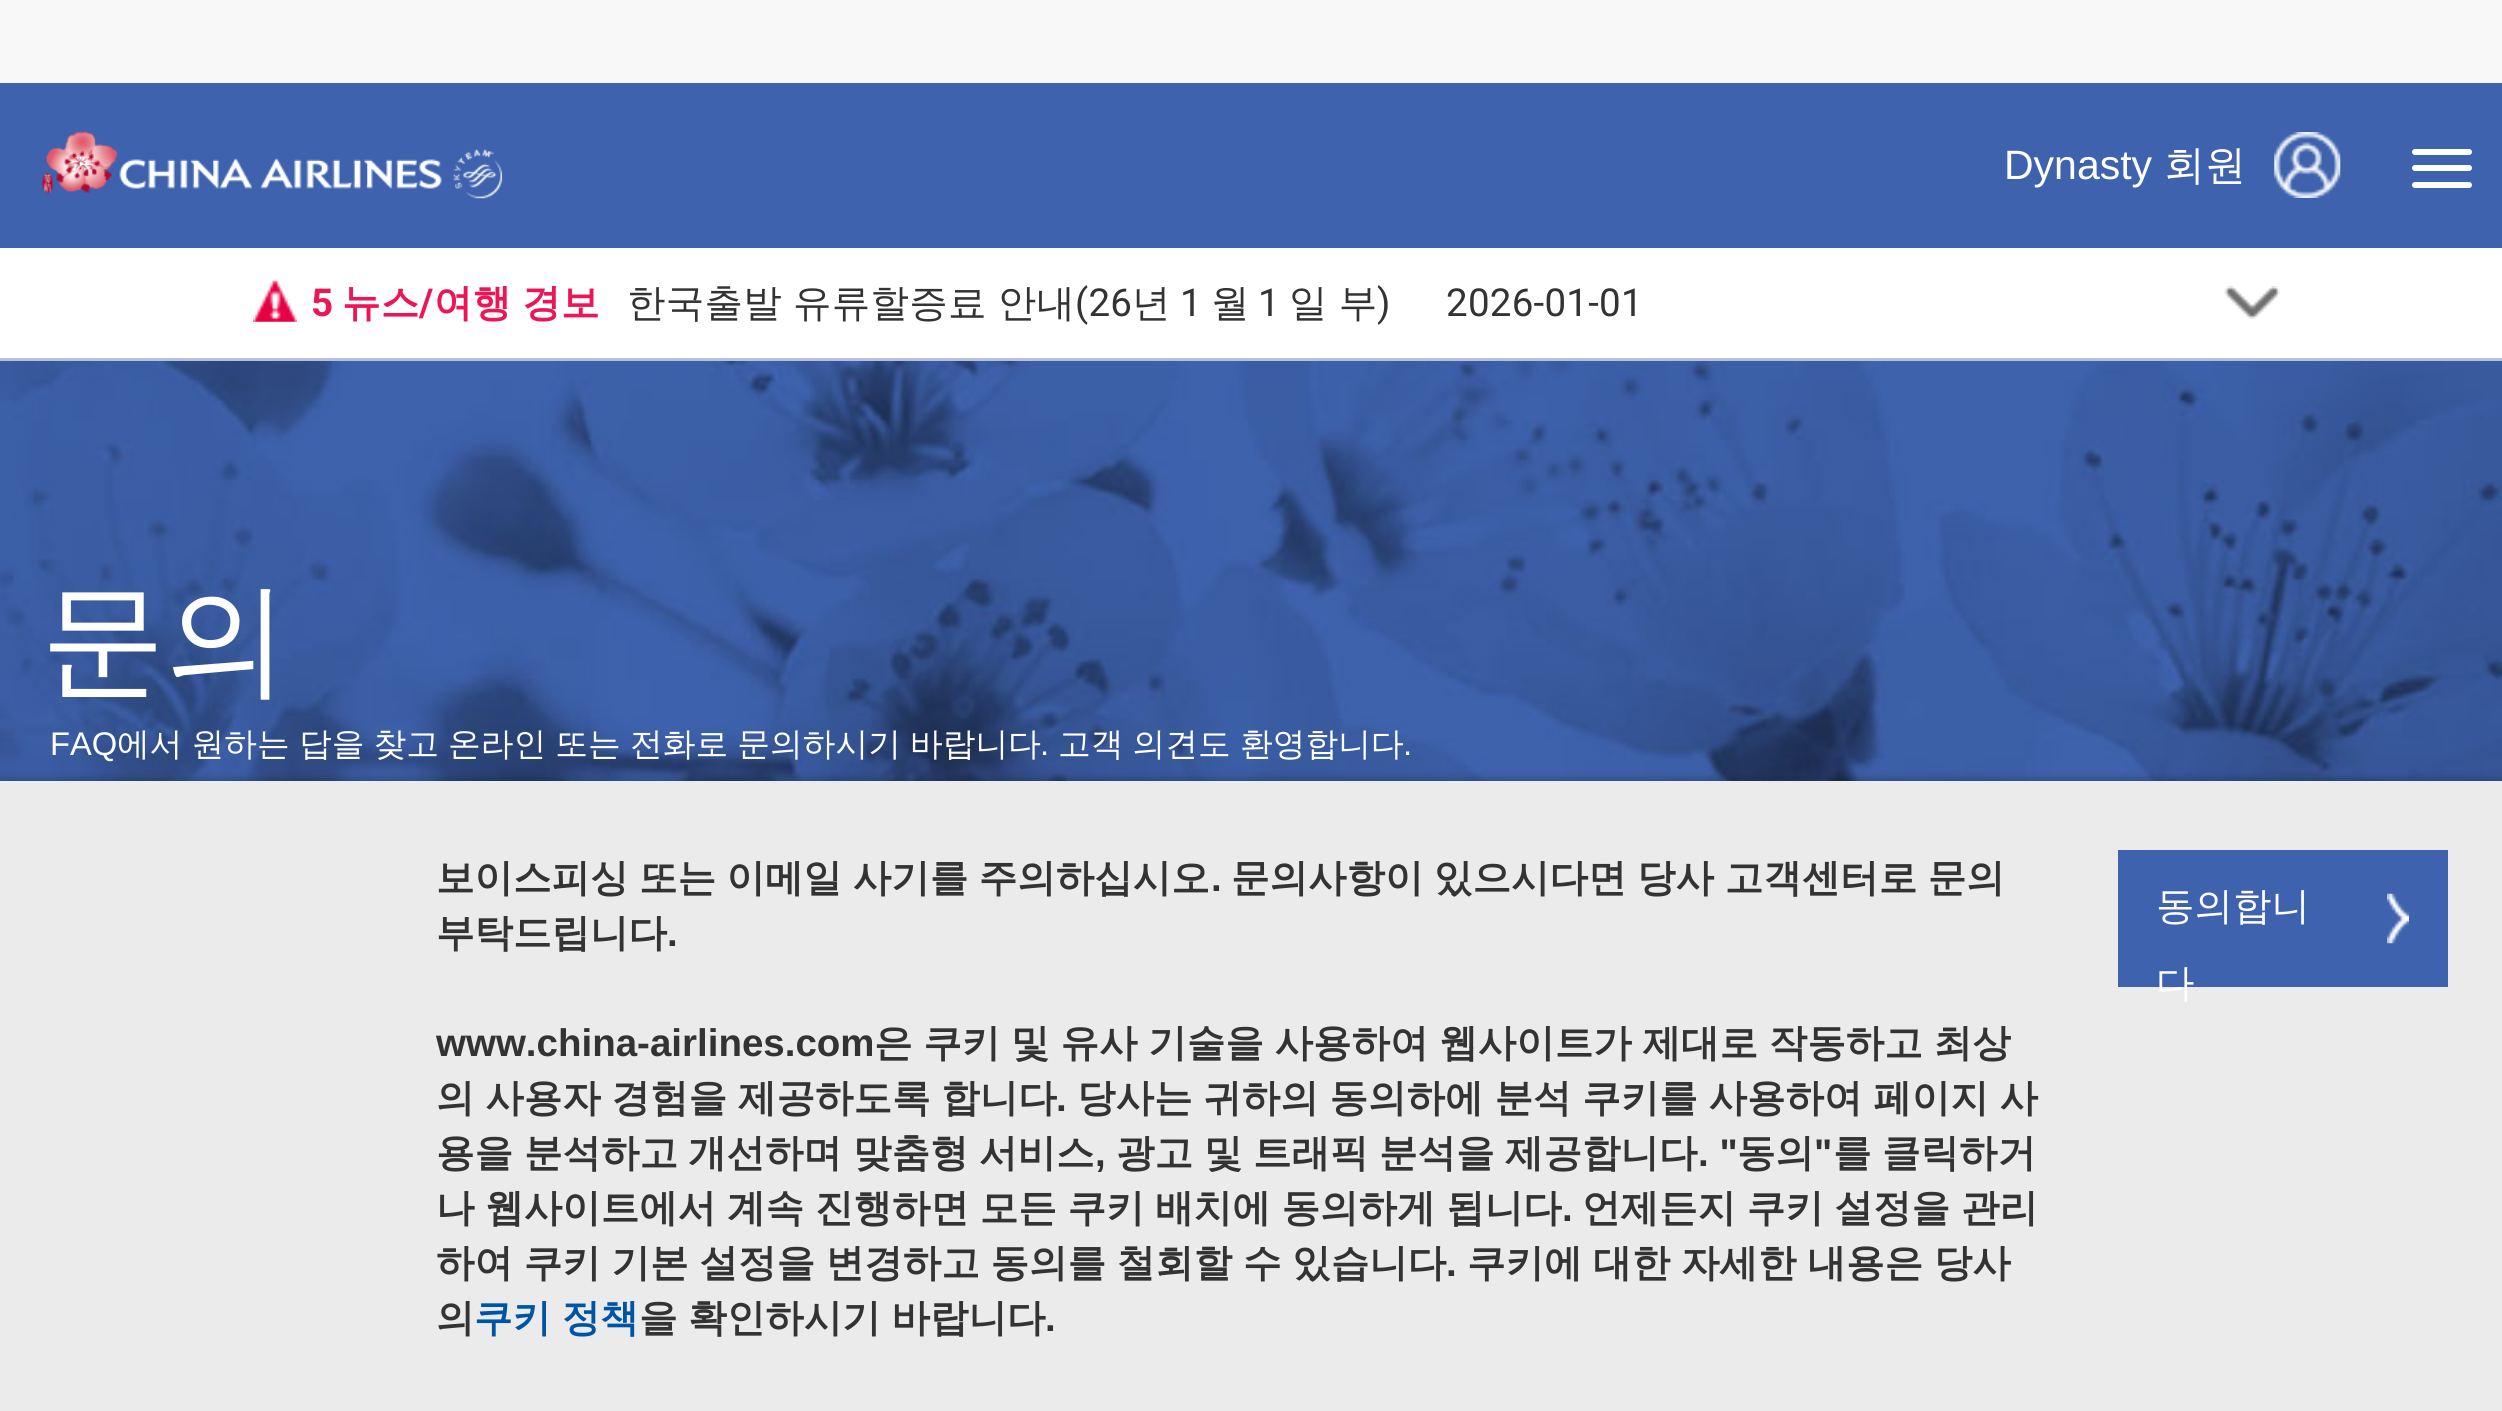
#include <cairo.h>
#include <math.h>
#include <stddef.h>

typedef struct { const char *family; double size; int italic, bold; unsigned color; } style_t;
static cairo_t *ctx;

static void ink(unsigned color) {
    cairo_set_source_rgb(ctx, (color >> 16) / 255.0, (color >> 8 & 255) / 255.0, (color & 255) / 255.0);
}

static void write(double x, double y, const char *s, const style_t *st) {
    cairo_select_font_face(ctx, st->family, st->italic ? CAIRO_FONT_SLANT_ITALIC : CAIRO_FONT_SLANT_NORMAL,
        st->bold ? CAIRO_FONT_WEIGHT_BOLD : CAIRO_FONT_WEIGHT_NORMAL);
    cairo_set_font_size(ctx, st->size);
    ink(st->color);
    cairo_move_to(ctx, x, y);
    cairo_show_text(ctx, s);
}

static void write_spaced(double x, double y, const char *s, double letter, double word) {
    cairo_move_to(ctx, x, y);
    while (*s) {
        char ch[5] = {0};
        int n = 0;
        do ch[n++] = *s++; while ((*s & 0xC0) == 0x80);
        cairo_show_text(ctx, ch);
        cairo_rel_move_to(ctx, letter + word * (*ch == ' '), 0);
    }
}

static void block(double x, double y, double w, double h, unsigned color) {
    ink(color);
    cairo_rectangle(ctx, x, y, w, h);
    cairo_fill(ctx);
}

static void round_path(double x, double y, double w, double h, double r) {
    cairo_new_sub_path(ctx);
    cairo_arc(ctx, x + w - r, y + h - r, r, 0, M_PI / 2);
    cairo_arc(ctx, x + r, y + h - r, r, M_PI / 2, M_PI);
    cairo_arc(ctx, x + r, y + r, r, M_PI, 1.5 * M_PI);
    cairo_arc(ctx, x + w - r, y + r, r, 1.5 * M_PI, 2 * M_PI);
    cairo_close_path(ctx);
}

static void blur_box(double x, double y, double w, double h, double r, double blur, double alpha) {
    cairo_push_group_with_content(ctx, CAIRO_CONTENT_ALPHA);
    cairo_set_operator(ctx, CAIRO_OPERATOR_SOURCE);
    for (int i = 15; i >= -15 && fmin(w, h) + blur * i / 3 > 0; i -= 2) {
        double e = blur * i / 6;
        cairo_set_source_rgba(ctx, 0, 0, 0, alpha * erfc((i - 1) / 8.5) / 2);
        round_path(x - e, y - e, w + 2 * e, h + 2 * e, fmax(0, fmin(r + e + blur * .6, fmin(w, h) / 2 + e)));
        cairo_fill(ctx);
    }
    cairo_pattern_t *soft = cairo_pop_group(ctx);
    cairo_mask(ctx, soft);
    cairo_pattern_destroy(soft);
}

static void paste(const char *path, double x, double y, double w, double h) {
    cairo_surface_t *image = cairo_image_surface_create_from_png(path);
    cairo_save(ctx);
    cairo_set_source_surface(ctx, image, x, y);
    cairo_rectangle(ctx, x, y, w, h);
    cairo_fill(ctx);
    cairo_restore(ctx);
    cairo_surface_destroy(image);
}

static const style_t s1 = {"Liberation Sans", 41, 0, 0, 0xffffff};
static const style_t s2 = {"WenQuanYi Zen Hei Medium", 41, 0, 0, 0xffffff};
static const style_t s3 = {"WenQuanYi Zen Hei Medium", 124, 0, 0, 0xffffff};
static const style_t s4 = {"Liberation Sans", 32.75, 0, 0, 0xffffff};
static const style_t s5 = {"Liberation Sans", 38.5, 0, 1, 0x333333};
static const style_t s6 = {"WenQuanYi Zen Hei", 38.5, 0, 1, 0x333333};
static const style_t s7 = {"WenQuanYi Zen Hei Medium", 38.5, 0, 0, 0xffffff};

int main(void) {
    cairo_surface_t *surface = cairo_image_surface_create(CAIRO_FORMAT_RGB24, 2502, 1411);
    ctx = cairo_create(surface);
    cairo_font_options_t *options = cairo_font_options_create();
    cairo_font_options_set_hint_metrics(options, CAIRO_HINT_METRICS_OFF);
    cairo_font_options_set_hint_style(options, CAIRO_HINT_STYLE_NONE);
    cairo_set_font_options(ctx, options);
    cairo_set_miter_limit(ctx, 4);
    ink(0xffffff);
    cairo_paint(ctx);
    block(0, 0, 2502, 83, 0xf8f8f8);
    block(0, 83, 2502, 165, 0x3e62ad);
    paste("pic1.png", 42, 131, 461, 68);
    write(2004, 179, "Dynasty", &s1);
    write(2164, 179, "회원", &s2);
    paste("pic2.png", 2274, 132, 67, 66);
    round_path(2412, 149, 60, 6, 3);
    cairo_fill(ctx);
    round_path(2412, 165, 60, 6, 3);
    cairo_fill(ctx);
    round_path(2412, 182, 60, 6, 3);
    cairo_fill(ctx);
    paste("pic3.png", 253, 280, 44, 42);
    cairo_select_font_face(ctx, "Roboto", CAIRO_FONT_SLANT_NORMAL, CAIRO_FONT_WEIGHT_BOLD);
    cairo_set_font_size(ctx, 38.5);
    ink(0xed1556);
    write_spaced(311, 316, "5", 0.25, 0);
    cairo_select_font_face(ctx, "WenQuanYi Zen Hei", CAIRO_FONT_SLANT_NORMAL, CAIRO_FONT_WEIGHT_BOLD);
    write_spaced(342, 316, "뉴스", 0.25, 0);
    cairo_select_font_face(ctx, "Roboto", CAIRO_FONT_SLANT_NORMAL, CAIRO_FONT_WEIGHT_BOLD);
    write_spaced(419, 316, "/", 0.25, 0);
    cairo_select_font_face(ctx, "WenQuanYi Zen Hei", CAIRO_FONT_SLANT_NORMAL, CAIRO_FONT_WEIGHT_BOLD);
    write_spaced(434, 316, "여행 경보", 0.25, -1);
    cairo_select_font_face(ctx, "WenQuanYi Zen Hei Medium", CAIRO_FONT_SLANT_NORMAL, CAIRO_FONT_WEIGHT_NORMAL);
    ink(0x333333);
    write_spaced(627, 316, "한국출발 유류할증료 안내", 0.25, -0.75);
    cairo_select_font_face(ctx, "Roboto", CAIRO_FONT_SLANT_NORMAL, CAIRO_FONT_WEIGHT_NORMAL);
    write_spaced(1075, 316, "(26", 0.25, 0);
    cairo_select_font_face(ctx, "WenQuanYi Zen Hei Medium", CAIRO_FONT_SLANT_NORMAL, CAIRO_FONT_WEIGHT_NORMAL);
    write_spaced(1132, 316, "년", 0.25, 0);
    cairo_select_font_face(ctx, "Roboto", CAIRO_FONT_SLANT_NORMAL, CAIRO_FONT_WEIGHT_NORMAL);
    write_spaced(1180, 316, "1", 0.25, 0);
    cairo_select_font_face(ctx, "WenQuanYi Zen Hei Medium", CAIRO_FONT_SLANT_NORMAL, CAIRO_FONT_WEIGHT_NORMAL);
    write_spaced(1211, 316, "월", 0.25, 0);
    cairo_select_font_face(ctx, "Roboto", CAIRO_FONT_SLANT_NORMAL, CAIRO_FONT_WEIGHT_NORMAL);
    write_spaced(1258, 316, "1", 0.25, 0);
    cairo_select_font_face(ctx, "WenQuanYi Zen Hei Medium", CAIRO_FONT_SLANT_NORMAL, CAIRO_FONT_WEIGHT_NORMAL);
    write_spaced(1289, 316, "일 부", 0.25, -0.75);
    cairo_select_font_face(ctx, "Roboto", CAIRO_FONT_SLANT_NORMAL, CAIRO_FONT_WEIGHT_NORMAL);
    write_spaced(1377, 316, ")", 0.25, 0);
    write_spaced(1446, 316, "2026-01-01", 0.25, 0);
    paste("pic4.png", 2224, 286, 56, 33);
    paste("pic5.png", 0, 361, 2502, 420);
    block(0, 358, 2502, 3, 0xb6c1d9);
    write(41, 682, "문의", &s3);
    write(50, 755, "FAQ", &s4);
    cairo_select_font_face(ctx, "WenQuanYi Zen Hei Medium", CAIRO_FONT_SLANT_NORMAL, CAIRO_FONT_WEIGHT_NORMAL);
    write_spaced(117, 755, "에서 원하는 답을 찾고 온라인 또는 전화로 문의하시기 바랍니다", 0, -0.75);
    write(1040, 755, ".", &s4);
    cairo_select_font_face(ctx, "WenQuanYi Zen Hei Medium", CAIRO_FONT_SLANT_NORMAL, CAIRO_FONT_WEIGHT_NORMAL);
    write_spaced(1058, 755, "고객 의견도 환영합니다", 0, -0.75);
    write(1403, 755, ".", &s4);
    ink(0x000000);
    blur_box(0, 778, 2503, 633, 0, 4, 0.2);
    block(0, 781, 2502, 630, 0xebebeb);
    cairo_select_font_face(ctx, "WenQuanYi Zen Hei", CAIRO_FONT_SLANT_NORMAL, CAIRO_FONT_WEIGHT_BOLD);
    cairo_set_font_size(ctx, 38.5);
    ink(0x333333);
    write_spaced(436, 891, "보이스피싱 또는 이메일 사기를 주의하십시오", 0, -1);
    write(1211, 891, ".", &s5);
    cairo_select_font_face(ctx, "WenQuanYi Zen Hei", CAIRO_FONT_SLANT_NORMAL, CAIRO_FONT_WEIGHT_BOLD);
    write_spaced(1231, 891, "문의사항이 있으시다면 당사 고객센터로 문의", 0, -1);
    write(436, 946, "부탁드립니다", &s6);
    write(667, 946, ".", &s5);
    write(436, 1056, "www.china-airlines.com", &s5);
    cairo_select_font_face(ctx, "WenQuanYi Zen Hei", CAIRO_FONT_SLANT_NORMAL, CAIRO_FONT_WEIGHT_BOLD);
    write_spaced(874, 1056, "은 쿠키 및 유사 기술을 사용하여 웹사이트가 제대로 작동하고 최상", 0, -0.75);
    write_spaced(436, 1111, "의 사용자 경험을 제공하도록 합니다", 0, -0.75);
    write(1056, 1111, ".", &s5);
    cairo_select_font_face(ctx, "WenQuanYi Zen Hei", CAIRO_FONT_SLANT_NORMAL, CAIRO_FONT_WEIGHT_BOLD);
    write_spaced(1077, 1111, "당사는 귀하의 동의하에 분석 쿠키를 사용하여 페이지 사", 0, -0.75);
    write(436, 1166, "용을", &s6);
    write(524, 1166, "분석하고", &s6);
    write(688, 1166, "개선하며", &s6);
    write(853, 1166, "맞춤형", &s6);
    write(979, 1166, "서비스", &s6);
    write(1116, 1166, "광고", &s6);
    write(1204, 1166, "및", &s6);
    write(1253, 1166, "트래픽", &s6);
    write(1379, 1166, "분석을", &s6);
    write(1505, 1166, "제공합니다", &s6);
    write(1698, 1166, ". \"", &s5);
    write(1737, 1166, "동의", &s6);
    write(1814, 1166, "\"", &s5);
    write(1833, 1166, "를", &s6);
    write(1882, 1166, "클릭하거", &s6);
    write(1095, 1166, ",", &s5);
    cairo_select_font_face(ctx, "WenQuanYi Zen Hei", CAIRO_FONT_SLANT_NORMAL, CAIRO_FONT_WEIGHT_BOLD);
    write_spaced(436, 1221, "나 웹사이트에서 계속 진행하면 모든 쿠키 배치에 동의하게 됩니다", 0, -0.75);
    write(1562, 1221, ".", &s5);
    cairo_select_font_face(ctx, "WenQuanYi Zen Hei", CAIRO_FONT_SLANT_NORMAL, CAIRO_FONT_WEIGHT_BOLD);
    write_spaced(1582, 1221, "언제든지 쿠키 설정을 관리", 0, -0.75);
    write_spaced(436, 1276, "하여 쿠키 기본 설정을 변경하고 동의를 철회할 수 있습니다", 0, -0.75);
    write(1446, 1276, ".", &s5);
    cairo_select_font_face(ctx, "WenQuanYi Zen Hei", CAIRO_FONT_SLANT_NORMAL, CAIRO_FONT_WEIGHT_BOLD);
    write_spaced(1467, 1276, "쿠키에 대한 자세한 내용은 당사", 0, -0.75);
    write(436, 1331, "의", &s6);
    ink(0x0054a4);
    write_spaced(474, 1331, "쿠키 정책", 0, -0.75);
    ink(0x333333);
    write_spaced(639, 1331, "을 확인하시기 바랍니다", 0, -0.75);
    write(1045, 1331, ".", &s5);
    block(2118, 850, 330, 137, 0x3e62ad);
    write(2156, 919, "동의합니", &s7);
    paste("pic6.png", 2387, 893, 22, 51);
    write(2156, 996, "다", &s7);
    cairo_surface_write_to_png(surface, "screenshot.png");
    cairo_font_options_destroy(options);
    cairo_destroy(ctx);
    cairo_surface_destroy(surface);
    return 0;
}
